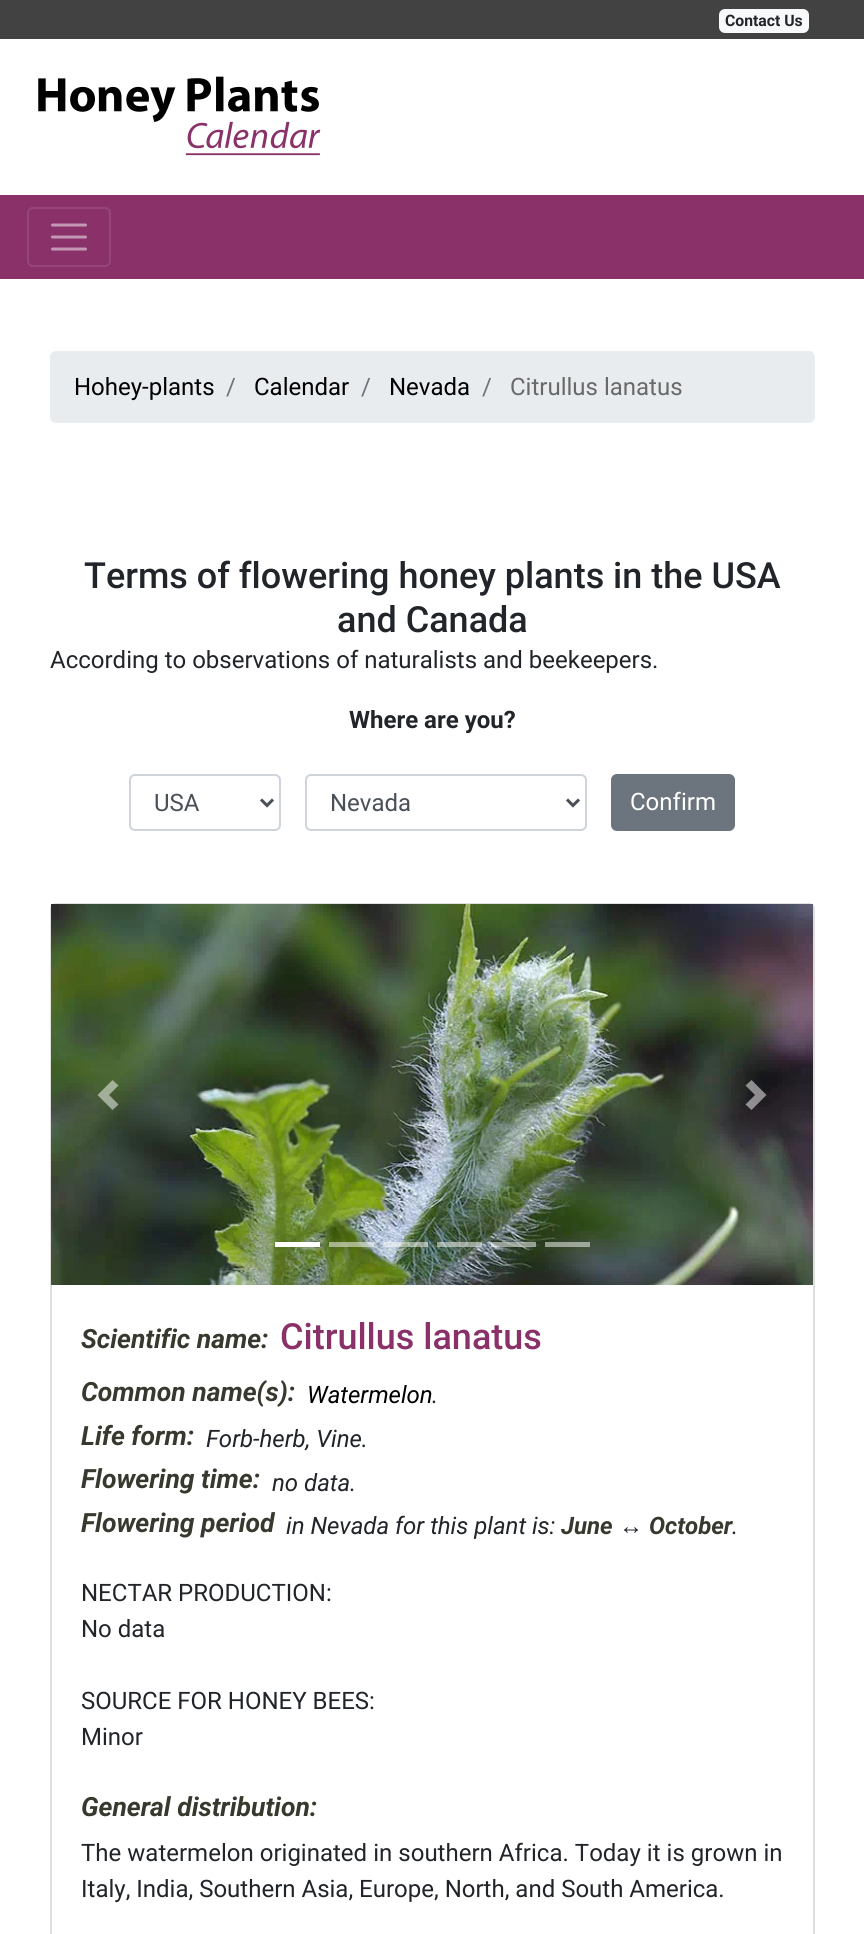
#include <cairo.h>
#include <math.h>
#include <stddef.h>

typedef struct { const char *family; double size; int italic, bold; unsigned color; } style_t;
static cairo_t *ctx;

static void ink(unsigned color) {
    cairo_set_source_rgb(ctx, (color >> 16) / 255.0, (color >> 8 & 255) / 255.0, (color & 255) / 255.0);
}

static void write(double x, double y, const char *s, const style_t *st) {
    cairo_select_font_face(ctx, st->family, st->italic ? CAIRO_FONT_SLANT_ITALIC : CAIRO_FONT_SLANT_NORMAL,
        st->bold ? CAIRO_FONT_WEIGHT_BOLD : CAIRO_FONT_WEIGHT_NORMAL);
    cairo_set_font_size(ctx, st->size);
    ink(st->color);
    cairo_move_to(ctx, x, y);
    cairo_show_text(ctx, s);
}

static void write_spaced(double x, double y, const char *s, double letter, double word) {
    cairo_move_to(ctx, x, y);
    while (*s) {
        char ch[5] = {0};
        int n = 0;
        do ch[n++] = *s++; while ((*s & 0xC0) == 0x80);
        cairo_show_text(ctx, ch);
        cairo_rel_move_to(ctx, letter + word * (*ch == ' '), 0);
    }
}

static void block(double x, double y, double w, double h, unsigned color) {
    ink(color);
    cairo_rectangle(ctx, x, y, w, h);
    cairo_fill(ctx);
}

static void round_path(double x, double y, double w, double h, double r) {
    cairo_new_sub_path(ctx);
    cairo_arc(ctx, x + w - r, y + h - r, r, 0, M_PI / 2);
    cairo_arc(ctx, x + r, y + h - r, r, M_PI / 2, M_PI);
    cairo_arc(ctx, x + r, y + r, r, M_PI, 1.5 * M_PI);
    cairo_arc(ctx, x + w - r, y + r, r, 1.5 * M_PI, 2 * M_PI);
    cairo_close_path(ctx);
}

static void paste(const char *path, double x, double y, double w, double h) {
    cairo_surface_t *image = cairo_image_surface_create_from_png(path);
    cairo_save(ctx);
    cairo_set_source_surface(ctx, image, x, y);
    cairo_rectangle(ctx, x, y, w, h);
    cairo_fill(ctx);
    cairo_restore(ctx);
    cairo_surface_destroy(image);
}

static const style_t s1 = {"Roboto", 15.75, 0, 1, 0x212529};
static const style_t s2 = {"Roboto", 24, 0, 0, 0x000000};
static const style_t s3 = {"Roboto", 24, 0, 0, 0x6c757d};
static const style_t s4 = {"Roboto", 24, 0, 0, 0x696969};
static const style_t s5 = {"Roboto Medium", 36, 0, 0, 0x212529};
static const style_t s6 = {"Roboto", 24, 0, 0, 0x212529};
static const style_t s7 = {"Roboto", 24, 0, 1, 0x212529};
static const style_t s8 = {"Roboto", 24, 0, 0, 0x495057};
static const style_t s9 = {"Roboto", 24, 0, 0, 0xffffff};
static const style_t s10 = {"Roboto", 26.5, 1, 1, 0x37392e};
static const style_t s11 = {"Roboto Medium", 36, 0, 0, 0x893168};
static const style_t s12 = {"Roboto", 24, 1, 0, 0x000000};
static const style_t s13 = {"Roboto", 24, 1, 0, 0x212529};
static const style_t s14 = {"Roboto", 24, 1, 1, 0x37392e};
static const style_t s15 = {"Liberation Sans", 24, 1, 0, 0x212529};

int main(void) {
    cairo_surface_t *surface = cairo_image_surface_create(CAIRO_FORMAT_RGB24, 864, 1934);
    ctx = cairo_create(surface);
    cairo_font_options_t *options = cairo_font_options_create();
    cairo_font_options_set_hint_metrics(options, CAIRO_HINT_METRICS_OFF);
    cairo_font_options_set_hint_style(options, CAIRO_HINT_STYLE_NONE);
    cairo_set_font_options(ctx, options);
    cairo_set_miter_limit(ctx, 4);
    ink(0xffffff);
    cairo_paint(ctx);
    block(0, 0, 864, 39, 0x424242);
    ink(0xf8f9fa);
    round_path(719, 9, 90, 24, 6);
    cairo_fill(ctx);
    write(725, 26, "Contact Us", &s1);
    paste("pic1.png", 38, 76, 283, 80);
    block(0, 195, 864, 84, 0x893168);
    round_path(28, 208, 82, 58, 5);
    ink(0x954677);
    cairo_stroke(ctx);
    cairo_new_path(ctx);
    cairo_move_to(ctx, 52.5, 225);
    cairo_line_to(ctx, 85.5, 225);
    cairo_move_to(ctx, 52.5, 237);
    cairo_line_to(ctx, 85.5, 237);
    cairo_move_to(ctx, 52.5, 249);
    cairo_line_to(ctx, 85.5, 249);
    ink(0xc498b4);
    cairo_set_line_width(ctx, 3);
    cairo_set_line_cap(ctx, CAIRO_LINE_CAP_ROUND);
    cairo_stroke(ctx);
    ink(0xe9ecef);
    round_path(50, 351, 765, 72, 6);
    cairo_fill(ctx);
    write(74, 395, "Hohey-plants", &s2);
    write(226, 395, "/", &s3);
    write(254, 395, "Calendar", &s2);
    write(361, 395, "/", &s3);
    write(389, 395, "Nevada", &s2);
    write(482, 395, "/", &s3);
    write(510, 395, "Citrullus lanatus", &s4);
    write(84, 588, "Terms of flowering honey plants in the USA", &s5);
    write(337, 632, "and Canada", &s5);
    write(50, 668, "According to observations of naturalists and beekeepers.", &s6);
    write(349, 728, "Where are you?", &s7);
    round_path(130, 775, 150, 55, 5);
    ink(0xced4da);
    cairo_set_line_width(ctx, 2);
    cairo_set_line_cap(ctx, CAIRO_LINE_CAP_BUTT);
    cairo_stroke(ctx);
    cairo_new_path(ctx);
    cairo_move_to(ctx, 261, 799.5);
    cairo_line_to(ctx, 267, 805.5);
    cairo_line_to(ctx, 273, 799.5);
    ink(0x495057);
    cairo_set_line_width(ctx, 3);
    cairo_stroke(ctx);
    write(154, 811, "USA", &s8);
    round_path(306, 775, 280, 55, 5);
    ink(0xced4da);
    cairo_set_line_width(ctx, 2);
    cairo_stroke(ctx);
    cairo_new_path(ctx);
    cairo_move_to(ctx, 567, 799.5);
    cairo_line_to(ctx, 573, 805.5);
    cairo_line_to(ctx, 579, 799.5);
    ink(0x495057);
    cairo_set_line_width(ctx, 3);
    cairo_stroke(ctx);
    write(330, 811, "Nevada", &s8);
    ink(0x6c757d);
    round_path(612, 775, 122, 55, 5);
    cairo_fill_preserve(ctx);
    cairo_set_line_width(ctx, 2);
    cairo_stroke(ctx);
    write(630, 810, "Confirm", &s9);
    round_path(51, 904, 763, 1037, 5);
    ink(0xdfdfdf);
    cairo_stroke(ctx);
    paste("pic2.png", 51, 904, 762, 381);
    cairo_set_source_rgba(ctx, 1, 1, 1, 0.5);
    cairo_new_path(ctx);
    cairo_move_to(ctx, 112.5, 1080);
    cairo_line_to(ctx, 97.5, 1095);
    cairo_line_to(ctx, 112.5, 1110);
    cairo_line_to(ctx, 118.5, 1104.5);
    cairo_line_to(ctx, 109, 1095);
    cairo_line_to(ctx, 118.5, 1085.5);
    cairo_close_path(ctx);
    cairo_fill(ctx);
    cairo_new_path(ctx);
    cairo_move_to(ctx, 751.5, 1080);
    cairo_line_to(ctx, 745.5, 1085.5);
    cairo_line_to(ctx, 755, 1095);
    cairo_line_to(ctx, 745.5, 1104.5);
    cairo_line_to(ctx, 751.5, 1110);
    cairo_line_to(ctx, 766.5, 1095);
    cairo_close_path(ctx);
    cairo_fill(ctx);
    block(275, 1242, 45, 5, 0xffffff);
    cairo_set_source_rgba(ctx, 1, 1, 1, 0.5);
    cairo_rectangle(ctx, 329, 1242, 45, 5);
    cairo_fill(ctx);
    cairo_rectangle(ctx, 383, 1242, 45, 5);
    cairo_fill(ctx);
    cairo_rectangle(ctx, 437, 1242, 45, 5);
    cairo_fill(ctx);
    cairo_rectangle(ctx, 491, 1242, 45, 5);
    cairo_fill(ctx);
    cairo_rectangle(ctx, 545, 1242, 45, 5);
    cairo_fill(ctx);
    write(81, 1348, "Scientific name:", &s10);
    write(280, 1349, "Citrullus lanatus", &s11);
    write(81, 1401, "Common name(s):", &s10);
    write(307, 1403, "Watermelon", &s12);
    write(432, 1403, ".", &s13);
    write(81, 1445, "Life form:", &s10);
    write(206, 1447, "Forb-herb, Vine.", &s13);
    write(81, 1488, "Flowering time:", &s10);
    write(272, 1491, "no data.", &s13);
    write(81, 1532, "Flowering period", &s10);
    write(286, 1534, "in Nevada for this plant is:", &s13);
    write(561, 1534, "June", &s14);
    write(619, 1534, "↔", &s15);
    write(649, 1534, "October", &s14);
    write(732, 1534, ".", &s13);
    write(81, 1601, "NECTAR PRODUCTION:", &s6);
    write(81, 1637, "No data", &s6);
    write(81, 1709, "SOURCE FOR HONEY BEES:", &s6);
    write(81, 1745, "Minor", &s6);
    write(81, 1816, "General distribution:", &s10);
    cairo_select_font_face(ctx, "Roboto", CAIRO_FONT_SLANT_NORMAL, CAIRO_FONT_WEIGHT_NORMAL);
    cairo_set_font_size(ctx, 24);
    ink(0x212529);
    write_spaced(81, 1861, "The watermelon originated in southern Africa. Today it is grown in", 0, 0.1);
    write(81, 1897, "Italy, India, Southern Asia, Europe, North, and South America.", &s6);
    cairo_surface_write_to_png(surface, "screenshot.png");
    cairo_font_options_destroy(options);
    cairo_destroy(ctx);
    cairo_surface_destroy(surface);
    return 0;
}
